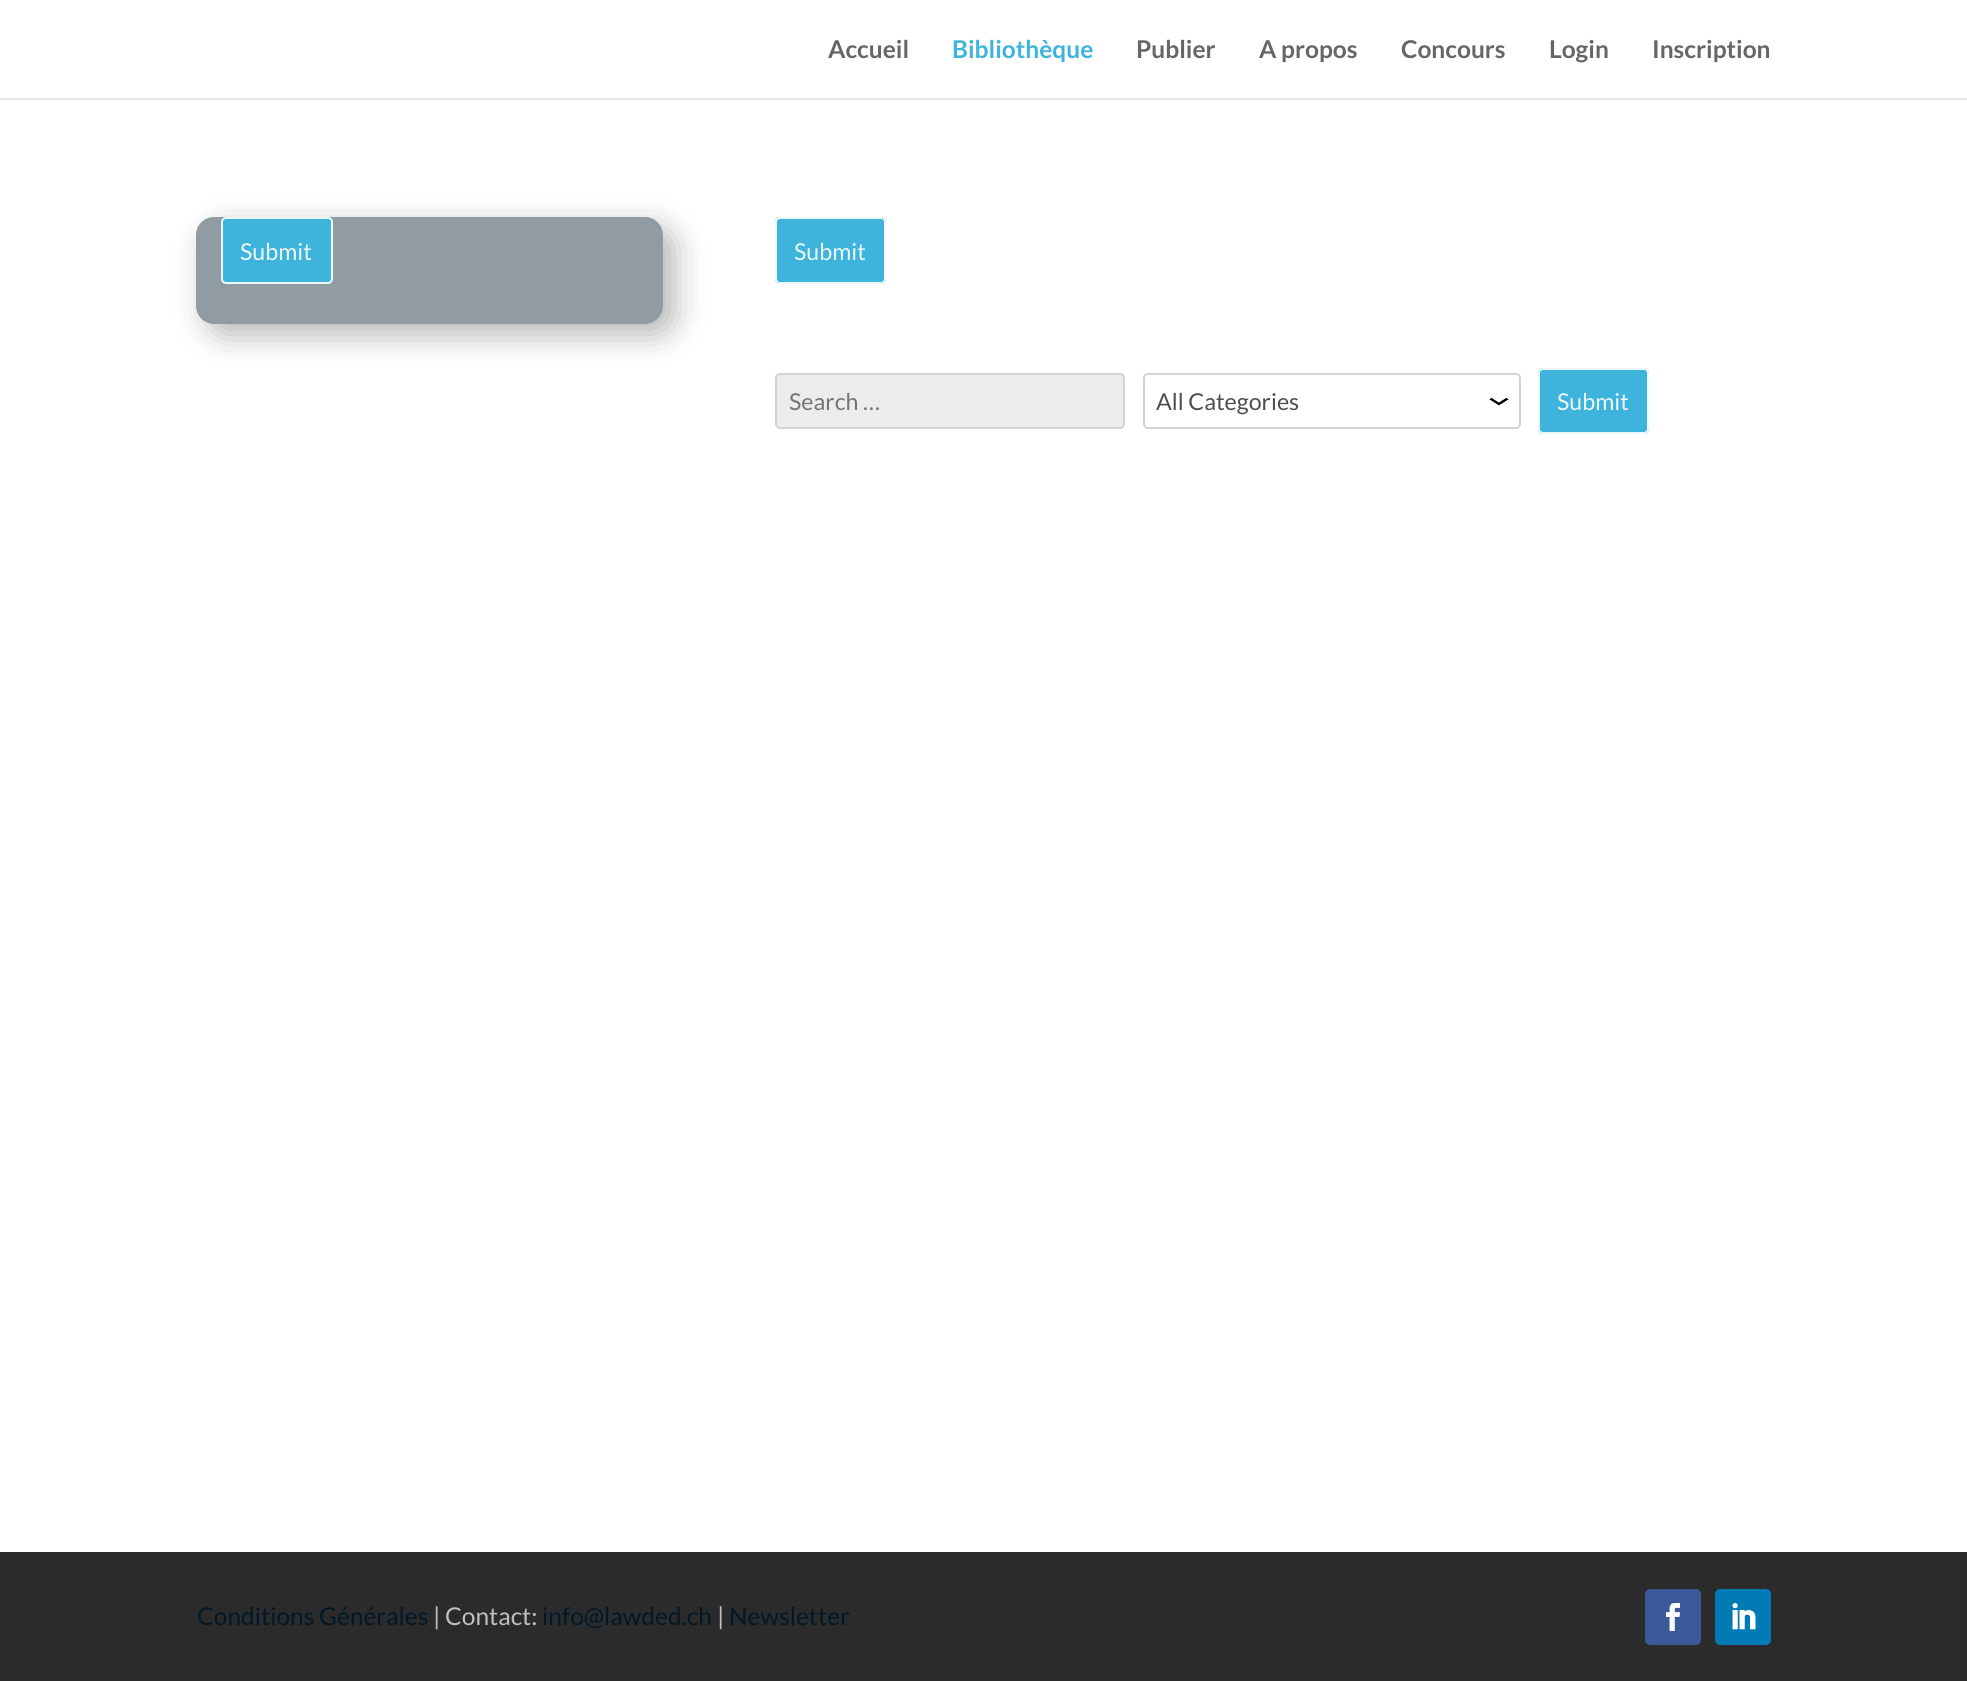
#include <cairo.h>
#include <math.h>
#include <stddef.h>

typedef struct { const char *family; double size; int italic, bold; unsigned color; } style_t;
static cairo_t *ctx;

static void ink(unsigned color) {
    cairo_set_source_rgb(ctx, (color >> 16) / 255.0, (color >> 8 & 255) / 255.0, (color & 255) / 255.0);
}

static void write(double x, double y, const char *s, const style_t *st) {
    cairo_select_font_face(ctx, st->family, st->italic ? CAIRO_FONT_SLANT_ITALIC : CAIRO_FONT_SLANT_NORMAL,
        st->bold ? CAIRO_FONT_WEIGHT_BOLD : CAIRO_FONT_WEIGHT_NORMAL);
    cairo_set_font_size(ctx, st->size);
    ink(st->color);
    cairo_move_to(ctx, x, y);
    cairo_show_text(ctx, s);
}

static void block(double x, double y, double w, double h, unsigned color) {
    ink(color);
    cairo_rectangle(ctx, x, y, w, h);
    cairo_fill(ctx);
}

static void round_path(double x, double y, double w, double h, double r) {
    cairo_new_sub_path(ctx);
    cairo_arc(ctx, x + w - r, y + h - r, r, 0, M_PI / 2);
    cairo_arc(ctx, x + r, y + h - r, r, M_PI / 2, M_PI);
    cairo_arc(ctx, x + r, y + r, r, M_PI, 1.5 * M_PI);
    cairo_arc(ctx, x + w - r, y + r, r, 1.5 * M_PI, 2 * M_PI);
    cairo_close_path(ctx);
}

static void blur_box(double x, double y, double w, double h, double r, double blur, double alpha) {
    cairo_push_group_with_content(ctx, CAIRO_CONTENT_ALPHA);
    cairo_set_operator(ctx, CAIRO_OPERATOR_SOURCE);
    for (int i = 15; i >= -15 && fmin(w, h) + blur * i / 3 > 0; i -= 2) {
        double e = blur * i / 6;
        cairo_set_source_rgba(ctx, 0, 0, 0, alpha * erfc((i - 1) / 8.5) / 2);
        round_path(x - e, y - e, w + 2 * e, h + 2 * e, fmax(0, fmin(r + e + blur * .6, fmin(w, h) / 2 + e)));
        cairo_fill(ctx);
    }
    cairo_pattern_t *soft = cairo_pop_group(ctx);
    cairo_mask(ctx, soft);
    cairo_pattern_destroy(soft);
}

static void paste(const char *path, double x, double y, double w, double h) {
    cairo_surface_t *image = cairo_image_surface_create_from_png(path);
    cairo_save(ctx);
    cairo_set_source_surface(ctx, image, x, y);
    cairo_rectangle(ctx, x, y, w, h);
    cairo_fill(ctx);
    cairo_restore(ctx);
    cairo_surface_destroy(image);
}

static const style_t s1 = {"Lato", 24.5, 0, 1, 0x666666};
static const style_t s2 = {"Lato", 24.5, 0, 1, 0x3eb3db};
static const style_t s3 = {"Lato", 23.25, 0, 0, 0xecf7fb};
static const style_t s4 = {"Lato", 23.25, 0, 0, 0x757575};
static const style_t s5 = {"Lato", 23.25, 0, 0, 0x4e4e4e};
static const style_t s6 = {"Lato", 24.5, 0, 0, 0x001828};
static const style_t s7 = {"Lato", 24.5, 0, 0, 0xbfbfbf};

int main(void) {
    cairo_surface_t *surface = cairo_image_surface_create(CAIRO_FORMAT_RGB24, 1967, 1681);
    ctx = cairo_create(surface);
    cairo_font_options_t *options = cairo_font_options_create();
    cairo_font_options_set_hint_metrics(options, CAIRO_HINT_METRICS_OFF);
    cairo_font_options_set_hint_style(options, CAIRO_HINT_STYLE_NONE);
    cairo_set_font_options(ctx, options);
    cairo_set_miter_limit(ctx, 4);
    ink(0xffffff);
    cairo_paint(ctx);
    block(0, 98, 1967, 2, 0xe6e6e6);
    write(828, 58, "Accueil", &s1);
    write(952, 58, "Bibliothèque", &s2);
    write(1136, 58, "Publier", &s1);
    write(1259, 58, "A propos", &s1);
    write(1401, 58, "Concours", &s1);
    write(1549, 58, "Login", &s1);
    write(1652, 58, "Inscription", &s1);
    cairo_save(ctx);
    cairo_set_fill_rule(ctx, CAIRO_FILL_RULE_EVEN_ODD);
    cairo_new_path(ctx);
    cairo_move_to(ctx, 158, 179);
    cairo_line_to(ctx, 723, 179);
    cairo_line_to(ctx, 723, 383);
    cairo_line_to(ctx, 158, 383);
    cairo_close_path(ctx);
    cairo_move_to(ctx, 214, 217);
    cairo_line_to(ctx, 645, 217);
    cairo_curve_to(ctx, 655, 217, 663, 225, 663, 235);
    cairo_line_to(ctx, 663, 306);
    cairo_curve_to(ctx, 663, 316, 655, 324, 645, 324);
    cairo_line_to(ctx, 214, 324);
    cairo_curve_to(ctx, 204, 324, 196, 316, 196, 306);
    cairo_line_to(ctx, 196, 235);
    cairo_curve_to(ctx, 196, 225, 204, 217, 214, 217);
    cairo_close_path(ctx);
    cairo_clip(ctx);
    ink(0x000000);
    blur_box(207, 228, 467, 106, 18, 16, 0.3);
    cairo_restore(ctx);
    cairo_set_source_rgba(ctx, 0, 0.094, 0.157, 0.43);
    round_path(196, 217, 467, 107, 18);
    cairo_fill(ctx);
    ink(0x3eb3db);
    round_path(221, 217, 112, 67, 5);
    cairo_fill(ctx);
    round_path(222, 218, 110, 65, 4);
    cairo_set_source_rgba(ctx, 1, 1, 1, 0.9);
    cairo_stroke(ctx);
    write(240, 260, "Submit", &s3);
    ink(0x3eb3db);
    round_path(775, 217, 111, 67, 5);
    cairo_fill(ctx);
    round_path(776, 218, 109, 65, 4);
    cairo_set_source_rgba(ctx, 1, 1, 1, 0.9);
    cairo_stroke(ctx);
    write(794, 260, "Submit", &s3);
    ink(0xececec);
    round_path(776, 374, 348, 54, 4);
    cairo_fill_preserve(ctx);
    ink(0xd3d3d3);
    cairo_stroke(ctx);
    write(789, 410, "Search …", &s4);
    paste("pic1.png", 1489, 398, 20, 8);
    round_path(1144, 374, 376, 54, 4);
    ink(0xd3d3d3);
    cairo_stroke(ctx);
    write(1156, 410, "All Categories", &s5);
    ink(0x3eb3db);
    round_path(1538, 368, 111, 66, 5);
    cairo_fill(ctx);
    round_path(1539, 369, 109, 64, 4);
    cairo_set_source_rgba(ctx, 1, 1, 1, 0.9);
    cairo_stroke(ctx);
    write(1557, 410, "Submit", &s3);
    block(0, 1552, 1967, 129, 0x2b2b2b);
    write(197, 1625, "Conditions Générales", &s6);
    write(433, 1625, "| Contact:", &s7);
    write(542, 1625, "info@lawded.ch", &s6);
    write(717, 1625, "|", &s7);
    write(729, 1625, "Newsletter", &s6);
    ink(0x3b5998);
    round_path(1645, 1589, 56, 56, 5);
    cairo_fill(ctx);
    paste("pic2.png", 1666, 1603, 15, 28);
    ink(0x007bb6);
    round_path(1715, 1589, 56, 56, 5);
    cairo_fill(ctx);
    paste("pic3.png", 1732, 1603, 24, 27);
    cairo_surface_write_to_png(surface, "screenshot.png");
    cairo_font_options_destroy(options);
    cairo_destroy(ctx);
    cairo_surface_destroy(surface);
    return 0;
}
